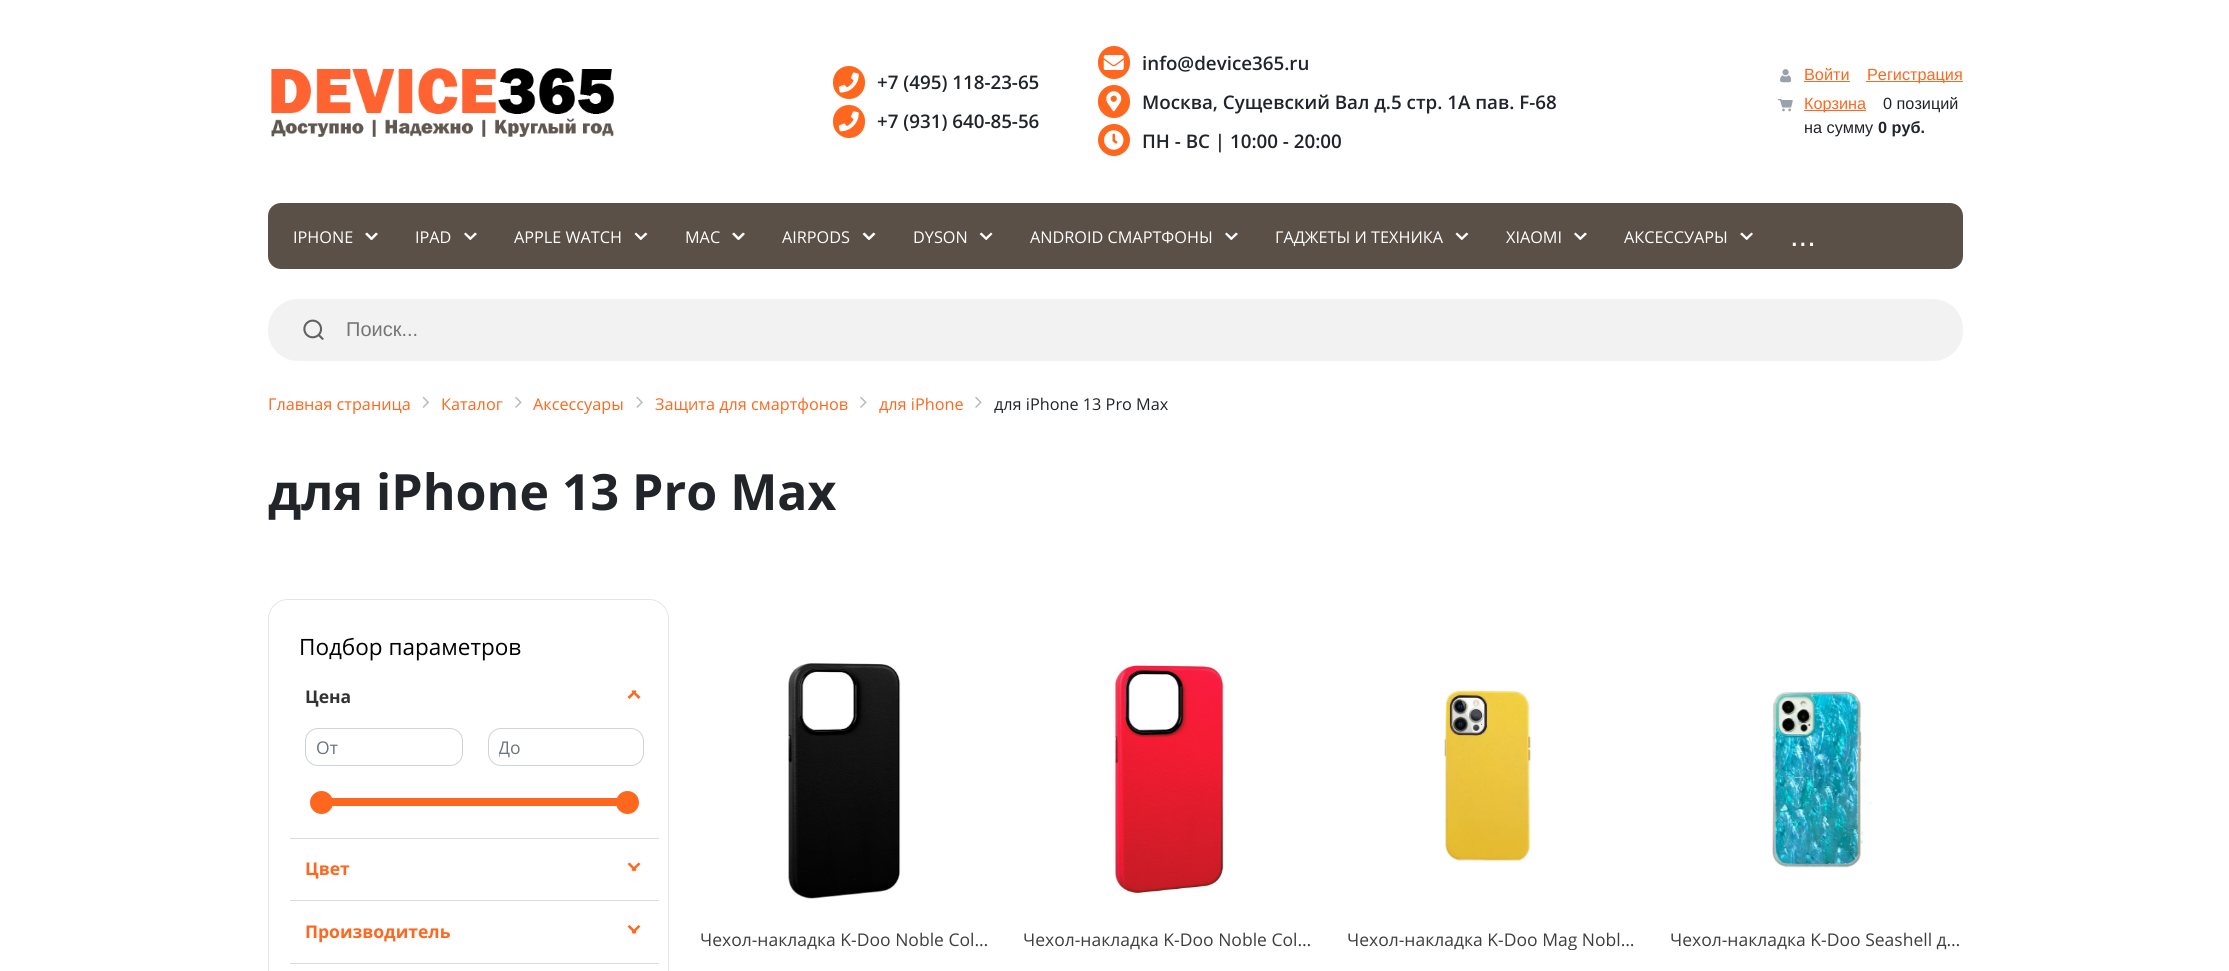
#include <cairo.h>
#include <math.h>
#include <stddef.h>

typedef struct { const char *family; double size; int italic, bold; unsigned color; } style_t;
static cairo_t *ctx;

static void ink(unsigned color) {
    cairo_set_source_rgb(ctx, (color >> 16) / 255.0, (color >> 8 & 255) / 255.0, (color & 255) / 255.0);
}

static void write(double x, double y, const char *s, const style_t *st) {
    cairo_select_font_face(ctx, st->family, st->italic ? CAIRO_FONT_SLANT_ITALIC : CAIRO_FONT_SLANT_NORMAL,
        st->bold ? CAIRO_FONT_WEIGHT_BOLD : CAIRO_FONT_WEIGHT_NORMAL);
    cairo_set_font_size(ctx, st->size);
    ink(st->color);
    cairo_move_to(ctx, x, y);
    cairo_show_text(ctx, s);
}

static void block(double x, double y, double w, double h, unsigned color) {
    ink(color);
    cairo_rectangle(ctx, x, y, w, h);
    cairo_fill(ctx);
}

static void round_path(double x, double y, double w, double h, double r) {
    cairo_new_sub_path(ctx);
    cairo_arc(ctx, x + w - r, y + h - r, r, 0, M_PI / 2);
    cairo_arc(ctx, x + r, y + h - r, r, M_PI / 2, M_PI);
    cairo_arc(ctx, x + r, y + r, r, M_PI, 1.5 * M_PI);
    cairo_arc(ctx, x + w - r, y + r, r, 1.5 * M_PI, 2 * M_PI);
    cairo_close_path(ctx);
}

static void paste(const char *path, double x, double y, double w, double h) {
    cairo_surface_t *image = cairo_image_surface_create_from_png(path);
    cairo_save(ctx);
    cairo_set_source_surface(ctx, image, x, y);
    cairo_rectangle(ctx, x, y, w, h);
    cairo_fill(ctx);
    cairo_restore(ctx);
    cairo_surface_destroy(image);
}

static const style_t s1 = {"Open Sans SemiBold", 18.75, 0, 0, 0x212529};
static const style_t s2 = {"Liberation Sans", 16.25, 0, 0, 0xff671e};
static const style_t s3 = {"Liberation Sans", 16.25, 0, 0, 0x212529};
static const style_t s4 = {"Liberation Sans", 16.25, 0, 1, 0x212529};
static const style_t s5 = {"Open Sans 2", 16.25, 0, 0, 0xffffff};
static const style_t s6 = {"Liberation Sans", 31, 0, 0, 0xffffff};
static const style_t s7 = {"Liberation Sans", 20, 0, 0, 0x757575};
static const style_t s8 = {"Open Sans", 16.25, 0, 0, 0xff671e};
static const style_t s9 = {"Open Sans", 16.25, 0, 0, 0x212529};
static const style_t s10 = {"Open Sans", 50, 0, 1, 0x212529};
static const style_t s11 = {"Open Sans", 22.5, 0, 0, 0x000000};
static const style_t s12 = {"Open Sans", 17.5, 0, 1, 0x333333};
static const style_t s13 = {"Open Sans", 17.5, 0, 0, 0x6c757d};
static const style_t s14 = {"Open Sans", 17.5, 0, 1, 0xff671e};
static const style_t s15 = {"Open Sans", 17.5, 0, 0, 0x3f3f3f};

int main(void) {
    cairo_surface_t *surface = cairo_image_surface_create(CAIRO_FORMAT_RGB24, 2229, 971);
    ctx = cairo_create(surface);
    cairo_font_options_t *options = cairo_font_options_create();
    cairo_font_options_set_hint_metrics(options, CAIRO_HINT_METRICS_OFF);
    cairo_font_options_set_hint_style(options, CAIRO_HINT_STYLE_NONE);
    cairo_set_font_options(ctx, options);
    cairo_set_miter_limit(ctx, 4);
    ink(0xffffff);
    cairo_paint(ctx);
    paste("pic1.png", 271, 68, 343, 69);
    ink(0xff671e);
    round_path(833, 66, 32, 33, 16);
    cairo_fill(ctx);
    paste("pic2.png", 838, 72, 21, 21);
    write(877, 89, "+7 (495) 118-23-65", &s1);
    ink(0xff671e);
    round_path(833, 105, 32, 33, 16);
    cairo_fill(ctx);
    paste("pic3.png", 838, 111, 21, 21);
    write(877, 128, "+7 (931) 640-85-56", &s1);
    ink(0xff671e);
    round_path(1098, 46, 32, 33, 16);
    cairo_fill(ctx);
    paste("pic4.png", 1103, 55, 21, 15);
    write(1142, 70, "info@device365.ru", &s1);
    ink(0xff671e);
    round_path(1098, 85, 32, 33, 16);
    cairo_fill(ctx);
    paste("pic5.png", 1106, 91, 16, 21);
    write(1142, 109, "Москва, Сущевский Вал д.5 стр. 1А пав. F-68", &s1);
    ink(0xff671e);
    cairo_new_path(ctx);
    cairo_arc(ctx, 1114, 140, 16, 0, 2 * M_PI);
    cairo_fill(ctx);
    paste("pic6.png", 1104, 130, 20, 20);
    write(1142, 148, "ПН - ВС | 10:00 - 20:00", &s1);
    paste("pic7.png", 1780, 69, 11, 14);
    write(1804, 80, "Войти", &s2);
    block(1804, 81, 46, 1, 0xff671e);
    block(1866, 81, 97, 1, 0xff671e);
    write(1867, 80, "Регистрация", &s2);
    paste("pic8.png", 1778, 99, 15, 13);
    block(1804, 110, 62, 1, 0xff671e);
    write(1804, 109, "Корзина", &s2);
    write(1883, 109, "0 позиций", &s3);
    write(1804, 133, "на сумму", &s3);
    write(1878, 133, "0 руб.", &s4);
    ink(0x5a5047);
    round_path(268, 203, 1695, 66, 13);
    cairo_fill(ctx);
    write(293, 243, "IPHONE", &s5);
    cairo_new_path(ctx);
    cairo_move_to(ctx, 370, 238.5);
    cairo_line_to(ctx, 376, 232.5);
    cairo_line_to(ctx, 378, 234);
    cairo_line_to(ctx, 372, 240);
    cairo_close_path(ctx);
    cairo_fill(ctx);
    cairo_new_path(ctx);
    cairo_move_to(ctx, 367, 232.5);
    cairo_line_to(ctx, 373, 238.5);
    cairo_line_to(ctx, 371, 240);
    cairo_line_to(ctx, 365, 234);
    cairo_close_path(ctx);
    cairo_fill(ctx);
    write(415, 243, "IPAD", &s5);
    cairo_new_path(ctx);
    cairo_move_to(ctx, 469, 238.5);
    cairo_line_to(ctx, 475, 232.5);
    cairo_line_to(ctx, 477, 234);
    cairo_line_to(ctx, 470.5, 240);
    cairo_close_path(ctx);
    cairo_fill(ctx);
    cairo_new_path(ctx);
    cairo_move_to(ctx, 465.5, 232.5);
    cairo_line_to(ctx, 472, 238.5);
    cairo_line_to(ctx, 470, 240);
    cairo_line_to(ctx, 464, 234);
    cairo_close_path(ctx);
    cairo_fill(ctx);
    write(514, 243, "APPLE WATCH", &s5);
    cairo_new_path(ctx);
    cairo_move_to(ctx, 639.5, 238.5);
    cairo_line_to(ctx, 645.5, 232.5);
    cairo_line_to(ctx, 647.5, 234);
    cairo_line_to(ctx, 641, 240);
    cairo_close_path(ctx);
    cairo_fill(ctx);
    cairo_new_path(ctx);
    cairo_move_to(ctx, 636, 232.5);
    cairo_line_to(ctx, 642.5, 238.5);
    cairo_line_to(ctx, 640.5, 240);
    cairo_line_to(ctx, 634.5, 234);
    cairo_close_path(ctx);
    cairo_fill(ctx);
    write(685, 243, "MAC", &s5);
    cairo_new_path(ctx);
    cairo_move_to(ctx, 737, 238.5);
    cairo_line_to(ctx, 743, 232.5);
    cairo_line_to(ctx, 745, 234);
    cairo_line_to(ctx, 739, 240);
    cairo_close_path(ctx);
    cairo_fill(ctx);
    cairo_new_path(ctx);
    cairo_move_to(ctx, 734, 232.5);
    cairo_line_to(ctx, 740, 238.5);
    cairo_line_to(ctx, 738, 240);
    cairo_line_to(ctx, 732, 234);
    cairo_close_path(ctx);
    cairo_fill(ctx);
    write(782, 243, "AIRPODS", &s5);
    cairo_new_path(ctx);
    cairo_move_to(ctx, 867.5, 238.5);
    cairo_line_to(ctx, 873.5, 232.5);
    cairo_line_to(ctx, 875.5, 234);
    cairo_line_to(ctx, 869.5, 240);
    cairo_close_path(ctx);
    cairo_fill(ctx);
    cairo_new_path(ctx);
    cairo_move_to(ctx, 864.5, 232.5);
    cairo_line_to(ctx, 870.5, 238.5);
    cairo_line_to(ctx, 868.5, 240);
    cairo_line_to(ctx, 862.5, 234);
    cairo_close_path(ctx);
    cairo_fill(ctx);
    write(913, 243, "DYSON", &s5);
    cairo_new_path(ctx);
    cairo_move_to(ctx, 984.5, 238.5);
    cairo_line_to(ctx, 991, 232.5);
    cairo_line_to(ctx, 992.5, 234);
    cairo_line_to(ctx, 986.5, 240);
    cairo_close_path(ctx);
    cairo_fill(ctx);
    cairo_new_path(ctx);
    cairo_move_to(ctx, 981.5, 232.5);
    cairo_line_to(ctx, 987.5, 238.5);
    cairo_line_to(ctx, 986, 240);
    cairo_line_to(ctx, 979.5, 234);
    cairo_close_path(ctx);
    cairo_fill(ctx);
    write(1030, 243, "ANDROID СМАРТФОНЫ", &s5);
    cairo_new_path(ctx);
    cairo_move_to(ctx, 1230, 238.5);
    cairo_line_to(ctx, 1236, 232.5);
    cairo_line_to(ctx, 1238, 234);
    cairo_line_to(ctx, 1231.5, 240);
    cairo_close_path(ctx);
    cairo_fill(ctx);
    cairo_new_path(ctx);
    cairo_move_to(ctx, 1226.5, 232.5);
    cairo_line_to(ctx, 1233, 238.5);
    cairo_line_to(ctx, 1231, 240);
    cairo_line_to(ctx, 1225, 234);
    cairo_close_path(ctx);
    cairo_fill(ctx);
    write(1275, 243, "ГАДЖЕТЫ И ТЕХНИКА", &s5);
    cairo_new_path(ctx);
    cairo_move_to(ctx, 1460.5, 238.5);
    cairo_line_to(ctx, 1466.5, 232.5);
    cairo_line_to(ctx, 1468.5, 234);
    cairo_line_to(ctx, 1462, 240);
    cairo_close_path(ctx);
    cairo_fill(ctx);
    cairo_new_path(ctx);
    cairo_move_to(ctx, 1457, 232.5);
    cairo_line_to(ctx, 1463.5, 238.5);
    cairo_line_to(ctx, 1461.5, 240);
    cairo_line_to(ctx, 1455.5, 234);
    cairo_close_path(ctx);
    cairo_fill(ctx);
    write(1506, 243, "XIAOMI", &s5);
    cairo_new_path(ctx);
    cairo_move_to(ctx, 1579, 238.5);
    cairo_line_to(ctx, 1585, 232.5);
    cairo_line_to(ctx, 1587, 234);
    cairo_line_to(ctx, 1580.5, 240);
    cairo_close_path(ctx);
    cairo_fill(ctx);
    cairo_new_path(ctx);
    cairo_move_to(ctx, 1575.5, 232.5);
    cairo_line_to(ctx, 1582, 238.5);
    cairo_line_to(ctx, 1580, 240);
    cairo_line_to(ctx, 1574, 234);
    cairo_close_path(ctx);
    cairo_fill(ctx);
    write(1624, 243, "АКСЕССУАРЫ", &s5);
    cairo_new_path(ctx);
    cairo_move_to(ctx, 1745, 238.5);
    cairo_line_to(ctx, 1751.5, 232.5);
    cairo_line_to(ctx, 1753, 234);
    cairo_line_to(ctx, 1747, 240);
    cairo_close_path(ctx);
    cairo_fill(ctx);
    cairo_new_path(ctx);
    cairo_move_to(ctx, 1742, 232.5);
    cairo_line_to(ctx, 1748, 238.5);
    cairo_line_to(ctx, 1746.5, 240);
    cairo_line_to(ctx, 1740, 234);
    cairo_close_path(ctx);
    cairo_fill(ctx);
    write(1790, 246, "...", &s6);
    ink(0xf2f2f2);
    round_path(268, 299, 1695, 62, 30);
    cairo_fill(ctx);
    paste("pic9.png", 303, 319, 21, 21);
    write(346, 336, "Поиск...", &s7);
    write(268, 410, "Главная страница", &s8);
    paste("pic10.png", 422, 396, 7, 12);
    write(441, 410, "Каталог", &s8);
    paste("pic11.png", 515, 396, 7, 12);
    write(533, 410, "Аксессуары", &s8);
    paste("pic12.png", 636, 396, 7, 12);
    write(655, 410, "Защита для смартфонов", &s8);
    paste("pic11.png", 860, 396, 7, 12);
    write(879, 410, "для iPhone", &s8);
    paste("pic11.png", 975, 396, 7, 12);
    write(994, 410, "для iPhone 13 Pro Max", &s9);
    write(268, 510, "для iPhone 13 Pro Max", &s10);
    round_path(268.5, 599.5, 400, 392, 19.5);
    ink(0xe5e5e5);
    cairo_set_line_width(ctx, 1);
    cairo_stroke(ctx);
    write(299, 655, "Подбор параметров", &s11);
    block(290, 838, 369, 1, 0xdcdcdc);
    write(305, 703, "Цена", &s12);
    ink(0xff671e);
    cairo_new_path(ctx);
    cairo_move_to(ctx, 627.5, 697);
    cairo_line_to(ctx, 635, 690);
    cairo_line_to(ctx, 636.5, 691.5);
    cairo_line_to(ctx, 629.5, 699);
    cairo_close_path(ctx);
    cairo_fill(ctx);
    cairo_new_path(ctx);
    cairo_move_to(ctx, 633, 690);
    cairo_line_to(ctx, 640.5, 697);
    cairo_line_to(ctx, 638.5, 699);
    cairo_line_to(ctx, 631.5, 691.5);
    cairo_close_path(ctx);
    cairo_fill(ctx);
    round_path(305.5, 728.5, 157, 37, 12.5);
    ink(0xced4da);
    cairo_stroke(ctx);
    write(316, 754, "От", &s13);
    round_path(488.5, 728.5, 155, 37, 12.5);
    ink(0xced4da);
    cairo_stroke(ctx);
    cairo_save(ctx);
    cairo_rectangle(ctx, 499, 735, 134, 24);
    cairo_clip(ctx);
    write(498, 754, "До", &s13);
    cairo_restore(ctx);
    block(328, 798, 293, 8, 0xff671e);
    cairo_new_path(ctx);
    cairo_arc(ctx, 321.5, 802.5, 11.5, 0, 2 * M_PI);
    cairo_fill(ctx);
    cairo_arc(ctx, 627.5, 802.5, 11.5, 0, 2 * M_PI);
    cairo_fill(ctx);
    block(290, 900, 369, 1, 0xdcdcdc);
    write(305, 875, "Цвет", &s14);
    cairo_new_path(ctx);
    cairo_move_to(ctx, 629.5, 862.5);
    cairo_line_to(ctx, 636.5, 869.5);
    cairo_line_to(ctx, 635, 871.5);
    cairo_line_to(ctx, 627.5, 864);
    cairo_close_path(ctx);
    cairo_fill(ctx);
    cairo_new_path(ctx);
    cairo_move_to(ctx, 631.5, 869.5);
    cairo_line_to(ctx, 638.5, 862.5);
    cairo_line_to(ctx, 640.5, 864);
    cairo_line_to(ctx, 633, 871.5);
    cairo_close_path(ctx);
    cairo_fill(ctx);
    block(290, 963, 369, 1, 0xdcdcdc);
    write(305, 938, "Производитель", &s14);
    cairo_new_path(ctx);
    cairo_move_to(ctx, 629.5, 925);
    cairo_line_to(ctx, 636.5, 932);
    cairo_line_to(ctx, 635, 934);
    cairo_line_to(ctx, 627.5, 926.5);
    cairo_close_path(ctx);
    cairo_fill(ctx);
    cairo_new_path(ctx);
    cairo_move_to(ctx, 631.5, 932);
    cairo_line_to(ctx, 638.5, 925);
    cairo_line_to(ctx, 640.5, 926.5);
    cairo_line_to(ctx, 633, 934);
    cairo_close_path(ctx);
    cairo_fill(ctx);
    paste("pic13.png", 788, 663, 113, 236);
    write(700, 946, "Чехол-накладка K-Doo Noble Col…", &s15);
    paste("pic14.png", 1111, 664, 113, 231);
    write(1023, 946, "Чехол-накладка K-Doo Noble Col…", &s15);
    paste("pic15.png", 1444, 690, 88, 173);
    cairo_save(ctx);
    cairo_rectangle(ctx, 1348, 929, 290, 21);
    cairo_clip(ctx);
    write(1347, 946, "Чехол-накладка K-Doo Mag Nobl…", &s15);
    cairo_restore(ctx);
    paste("pic16.png", 1772, 691, 100, 177);
    write(1670, 946, "Чехол-накладка K-Doo Seashell д…", &s15);
    cairo_surface_write_to_png(surface, "screenshot.png");
    cairo_font_options_destroy(options);
    cairo_destroy(ctx);
    cairo_surface_destroy(surface);
    return 0;
}
